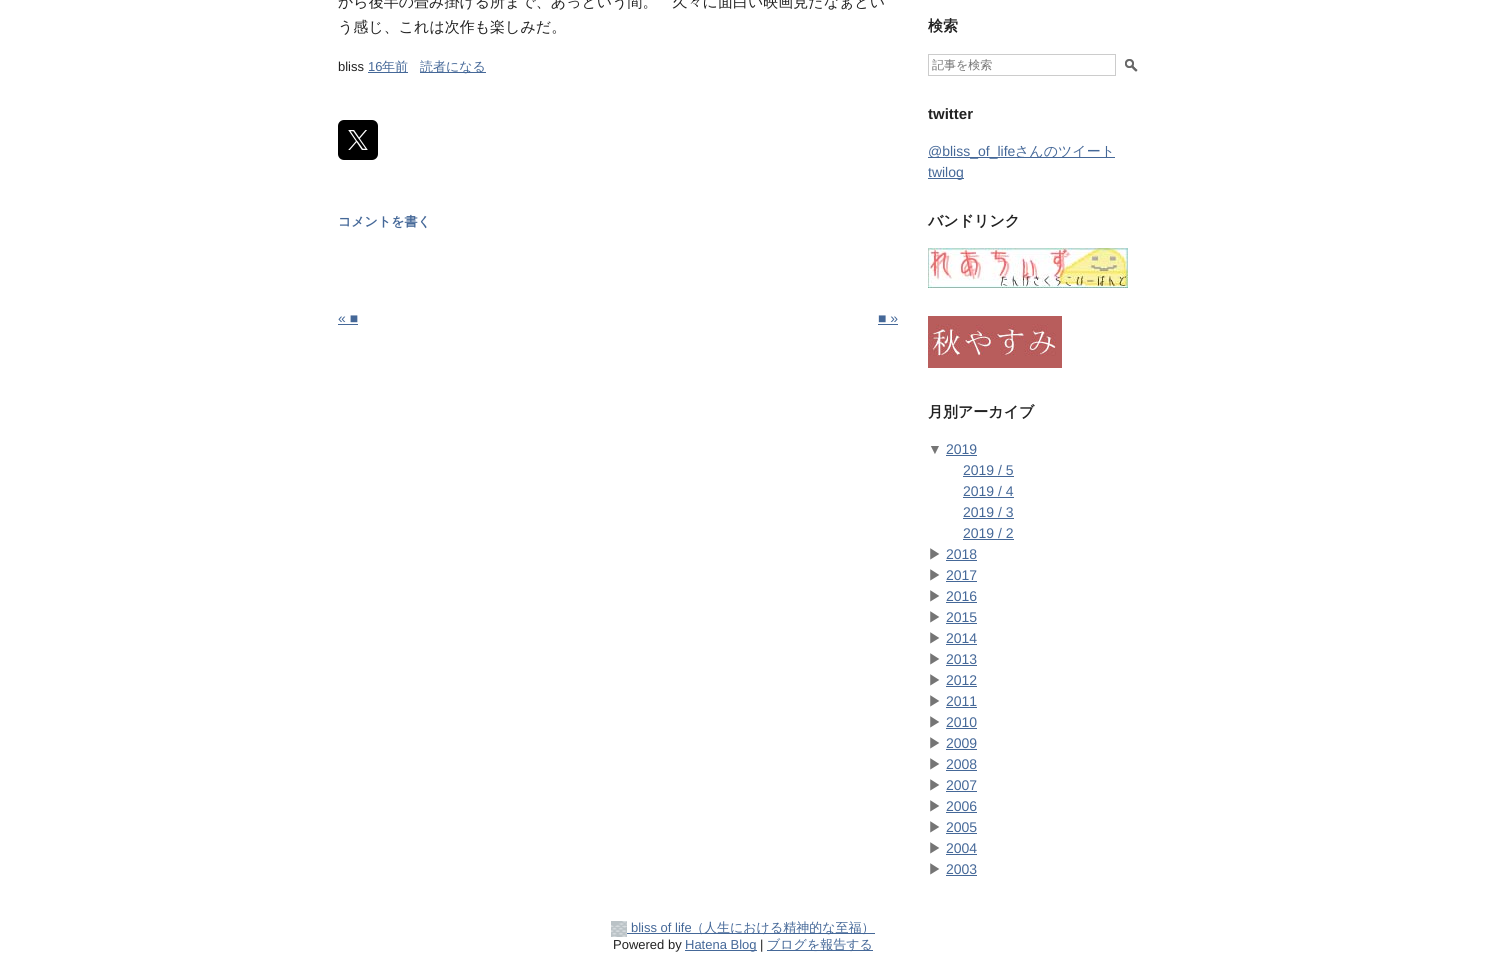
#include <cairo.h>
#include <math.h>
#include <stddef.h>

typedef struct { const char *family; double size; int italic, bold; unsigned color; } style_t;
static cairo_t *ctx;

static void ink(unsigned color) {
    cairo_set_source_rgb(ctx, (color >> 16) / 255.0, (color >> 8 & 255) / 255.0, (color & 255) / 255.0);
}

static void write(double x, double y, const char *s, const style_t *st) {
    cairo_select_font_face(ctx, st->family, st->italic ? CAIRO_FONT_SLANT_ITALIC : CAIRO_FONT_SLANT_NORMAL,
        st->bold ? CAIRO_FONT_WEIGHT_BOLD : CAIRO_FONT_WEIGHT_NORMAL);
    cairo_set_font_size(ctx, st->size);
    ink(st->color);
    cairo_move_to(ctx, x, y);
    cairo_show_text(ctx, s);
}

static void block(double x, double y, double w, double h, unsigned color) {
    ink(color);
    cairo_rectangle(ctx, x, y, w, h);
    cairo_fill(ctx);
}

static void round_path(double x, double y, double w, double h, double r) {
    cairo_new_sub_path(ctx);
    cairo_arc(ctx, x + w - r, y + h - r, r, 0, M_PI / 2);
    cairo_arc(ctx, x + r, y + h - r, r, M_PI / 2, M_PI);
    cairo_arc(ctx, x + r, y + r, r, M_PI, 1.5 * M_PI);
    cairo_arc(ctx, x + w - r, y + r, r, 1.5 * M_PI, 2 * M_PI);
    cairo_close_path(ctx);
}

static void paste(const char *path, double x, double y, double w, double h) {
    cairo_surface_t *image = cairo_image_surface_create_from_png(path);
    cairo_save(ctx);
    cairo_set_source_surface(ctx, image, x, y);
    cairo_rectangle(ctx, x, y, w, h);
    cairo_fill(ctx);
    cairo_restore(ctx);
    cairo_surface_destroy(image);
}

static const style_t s1 = {"WenQuanYi Zen Hei Medium", 15, 0, 0, 0x222222};
static const style_t s2 = {"Liberation Sans", 13, 0, 0, 0x222222};
static const style_t s3 = {"Liberation Sans", 13, 0, 0, 0x456898};
static const style_t s4 = {"WenQuanYi Zen Hei Medium", 13, 0, 0, 0x456898};
static const style_t s5 = {"WenQuanYi Zen Hei", 13, 0, 1, 0x456898};
static const style_t s6 = {"Liberation Sans", 14, 0, 0, 0x456898};
static const style_t s7 = {"WenQuanYi Zen Hei", 15, 0, 1, 0x222222};
static const style_t s8 = {"WenQuanYi Zen Hei Medium", 12, 0, 0, 0x757575};
static const style_t s9 = {"Liberation Sans", 15, 0, 1, 0x222222};
static const style_t s10 = {"WenQuanYi Zen Hei Medium", 14, 0, 0, 0x456898};
static const style_t s11 = {"Liberation Sans", 14, 0, 0, 0x757575};
static const style_t s12 = {"WenQuanYi Zen Hei Medium", 14, 0, 0, 0x757575};

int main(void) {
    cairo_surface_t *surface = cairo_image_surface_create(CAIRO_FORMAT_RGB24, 1486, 961);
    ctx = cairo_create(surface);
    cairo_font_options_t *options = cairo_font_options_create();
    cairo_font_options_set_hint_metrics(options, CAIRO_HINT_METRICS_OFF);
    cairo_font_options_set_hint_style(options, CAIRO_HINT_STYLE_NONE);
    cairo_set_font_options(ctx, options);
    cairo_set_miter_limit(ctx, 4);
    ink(0xffffff);
    cairo_paint(ctx);
    write(338, 7, "から後半の畳み掛ける所まで、あっという間。　久々に面白い映画見たなぁとい", &s1);
    write(338, 32, "う感じ、これは次作も楽しみだ。", &s1);
    write(338, 71, "bliss", &s2);
    write(368, 71, "16", &s3);
    block(368, 72, 40, 1, 0x456898);
    write(382, 71, "年前", &s4);
    block(420, 72, 66, 1, 0x456898);
    write(420, 71, "読者になる", &s4);
    ink(0x000000);
    round_path(338, 120, 40, 40, 6);
    cairo_fill(ctx);
    paste("pic1.png", 348, 130, 20, 20);
    write(338, 226, "コメントを書く", &s5);
    write(338, 323, "« ■", &s6);
    block(338, 324, 20, 1, 0x456898);
    write(878, 323, "■ »", &s6);
    block(878, 324, 20, 1, 0x456898);
    write(928, 31, "検索", &s7);
    cairo_rectangle(ctx, 928.5, 54.5, 187, 21);
    ink(0xcccccc);
    cairo_set_line_width(ctx, 1);
    cairo_stroke(ctx);
    write(932, 69, "記事を検索", &s8);
    paste("pic2.png", 1125, 59, 13, 13);
    write(928, 119, "twitter", &s9);
    block(928, 157, 187, 1, 0x456898);
    write(928, 156, "@bliss_of_life", &s6);
    write(1015, 156, "さんのツイート", &s10);
    block(928, 178, 36, 1, 0x456898);
    write(928, 177, "twilog", &s6);
    write(928, 226, "バンドリンク", &s7);
    paste("pic3.png", 928, 248, 200, 40);
    paste("pic4.png", 928, 316, 134, 52);
    write(928, 417, "月別アーカイブ", &s7);
    write(928, 454, "▼", &s11);
    write(946, 454, "2019", &s6);
    block(946, 455, 31, 1, 0x456898);
    write(963, 475, "2019 / 5", &s6);
    block(963, 476, 51, 1, 0x456898);
    write(963, 496, "2019 / 4", &s6);
    block(963, 497, 51, 1, 0x456898);
    write(963, 517, "2019 / 3", &s6);
    block(963, 518, 51, 1, 0x456898);
    write(963, 538, "2019 / 2", &s6);
    block(963, 539, 51, 1, 0x456898);
    write(928, 559, "▶", &s12);
    write(946, 559, "2018", &s6);
    block(946, 560, 31, 1, 0x456898);
    write(928, 580, "▶", &s12);
    write(946, 580, "2017", &s6);
    block(946, 581, 31, 1, 0x456898);
    write(928, 601, "▶", &s12);
    write(946, 601, "2016", &s6);
    block(946, 602, 31, 1, 0x456898);
    write(928, 622, "▶", &s12);
    write(946, 622, "2015", &s6);
    block(946, 623, 31, 1, 0x456898);
    write(928, 643, "▶", &s12);
    write(946, 643, "2014", &s6);
    block(946, 644, 31, 1, 0x456898);
    write(928, 664, "▶", &s12);
    write(946, 664, "2013", &s6);
    block(946, 665, 31, 1, 0x456898);
    write(928, 685, "▶", &s12);
    write(946, 685, "2012", &s6);
    block(946, 686, 31, 1, 0x456898);
    write(928, 706, "▶", &s12);
    write(946, 706, "2011", &s6);
    block(946, 707, 31, 1, 0x456898);
    write(928, 727, "▶", &s12);
    write(946, 727, "2010", &s6);
    block(946, 728, 31, 1, 0x456898);
    write(928, 748, "▶", &s12);
    write(946, 748, "2009", &s6);
    block(946, 749, 31, 1, 0x456898);
    write(928, 769, "▶", &s12);
    write(946, 769, "2008", &s6);
    block(946, 770, 31, 1, 0x456898);
    write(928, 790, "▶", &s12);
    write(946, 790, "2007", &s6);
    block(946, 791, 31, 1, 0x456898);
    write(928, 811, "▶", &s12);
    write(946, 811, "2006", &s6);
    block(946, 812, 31, 1, 0x456898);
    write(928, 832, "▶", &s12);
    write(946, 832, "2005", &s6);
    block(946, 833, 31, 1, 0x456898);
    write(928, 853, "▶", &s12);
    write(946, 853, "2004", &s6);
    block(946, 854, 31, 1, 0x456898);
    write(928, 874, "▶", &s12);
    write(946, 874, "2003", &s6);
    block(946, 875, 31, 1, 0x456898);
    paste("pic5.png", 611, 921, 16, 16);
    write(631, 932, "bliss of life", &s3);
    block(627, 933, 248, 1, 0x456898);
    write(691, 932, "（人生における精神的な至福）", &s4);
    write(613, 949, "Powered by", &s2);
    block(685, 950, 72, 1, 0x456898);
    write(685, 949, "Hatena Blog", &s3);
    write(760, 949, "|", &s2);
    block(767, 950, 106, 1, 0x456898);
    write(767, 949, "ブログを報告する", &s4);
    cairo_surface_write_to_png(surface, "screenshot.png");
    cairo_font_options_destroy(options);
    cairo_destroy(ctx);
    cairo_surface_destroy(surface);
    return 0;
}
